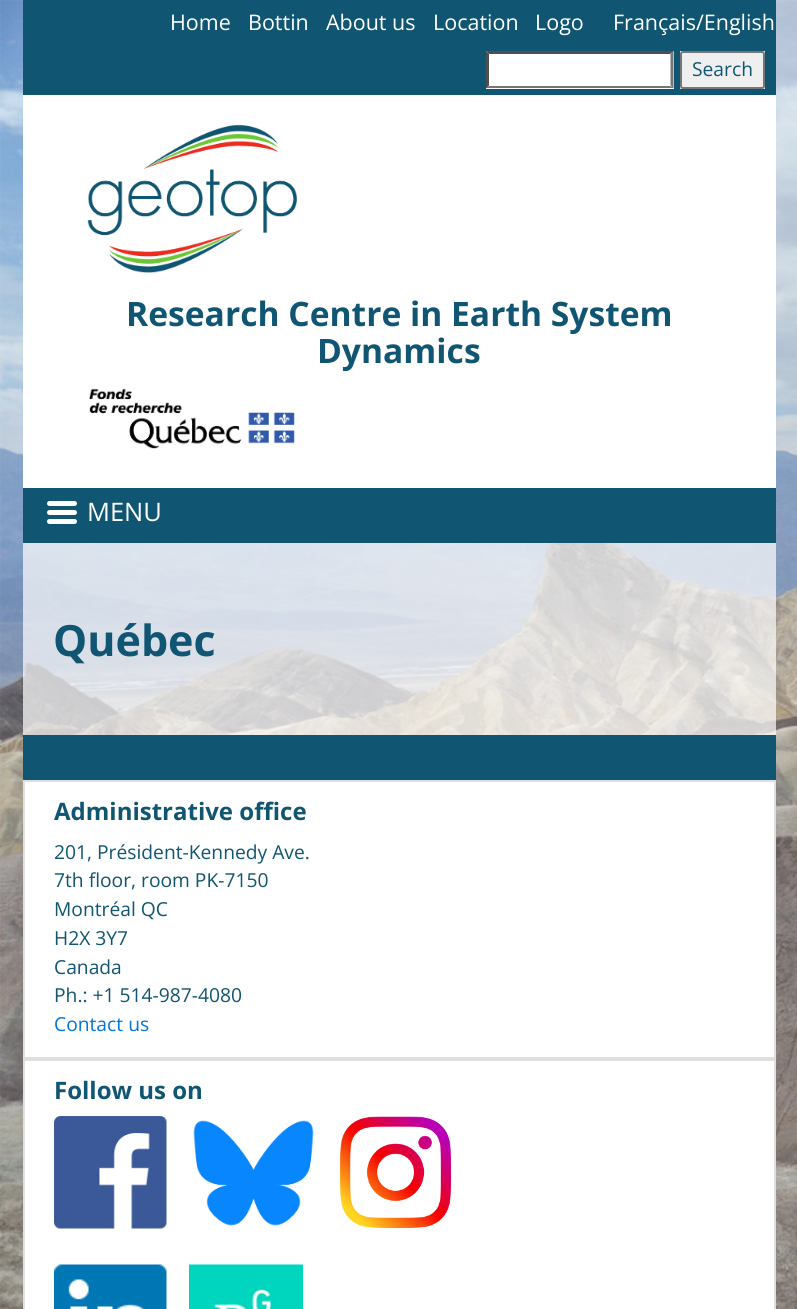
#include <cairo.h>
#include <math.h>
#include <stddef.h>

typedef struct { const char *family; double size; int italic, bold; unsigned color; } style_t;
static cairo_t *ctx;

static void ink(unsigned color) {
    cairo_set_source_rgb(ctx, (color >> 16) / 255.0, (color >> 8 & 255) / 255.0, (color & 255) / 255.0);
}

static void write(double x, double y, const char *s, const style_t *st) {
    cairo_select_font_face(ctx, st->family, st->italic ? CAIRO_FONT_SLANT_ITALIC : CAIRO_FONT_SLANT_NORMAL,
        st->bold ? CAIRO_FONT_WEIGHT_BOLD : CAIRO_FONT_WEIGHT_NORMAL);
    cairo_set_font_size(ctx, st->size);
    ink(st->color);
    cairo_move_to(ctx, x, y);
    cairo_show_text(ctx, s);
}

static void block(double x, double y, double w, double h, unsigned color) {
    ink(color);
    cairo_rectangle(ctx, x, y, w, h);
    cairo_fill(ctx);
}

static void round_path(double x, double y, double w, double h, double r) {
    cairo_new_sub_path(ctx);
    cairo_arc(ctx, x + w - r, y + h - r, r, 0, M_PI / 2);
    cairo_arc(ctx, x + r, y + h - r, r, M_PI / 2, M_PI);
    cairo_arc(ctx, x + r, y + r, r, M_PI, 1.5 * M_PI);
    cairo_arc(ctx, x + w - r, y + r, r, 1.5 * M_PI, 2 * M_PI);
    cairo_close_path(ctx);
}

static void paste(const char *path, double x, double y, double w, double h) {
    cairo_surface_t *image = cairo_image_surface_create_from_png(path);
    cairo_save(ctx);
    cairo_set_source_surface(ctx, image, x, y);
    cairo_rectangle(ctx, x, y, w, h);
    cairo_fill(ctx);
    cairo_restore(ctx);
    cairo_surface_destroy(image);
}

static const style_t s1 = {"Open Sans", 21.5, 0, 0, 0xffffff};
static const style_t s2 = {"Open Sans", 19.25, 0, 0, 0x105572};
static const style_t s3 = {"Open Sans", 33.6, 0, 1, 0x105572};
static const style_t s4 = {"Open Sans", 25.5, 0, 0, 0xffffff};
static const style_t s5 = {"Open Sans", 43, 0, 1, 0x105572};
static const style_t s6 = {"Open Sans", 24, 0, 1, 0x105572};
static const style_t s7 = {"Open Sans", 19.25, 0, 0, 0x0275d8};

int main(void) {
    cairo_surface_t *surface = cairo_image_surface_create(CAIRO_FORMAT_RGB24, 797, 1309);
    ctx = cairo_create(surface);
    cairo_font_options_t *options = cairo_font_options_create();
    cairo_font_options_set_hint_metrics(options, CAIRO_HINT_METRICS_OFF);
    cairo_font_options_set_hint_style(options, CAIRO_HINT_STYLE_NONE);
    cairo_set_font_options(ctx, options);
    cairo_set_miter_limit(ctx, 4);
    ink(0xffffff);
    cairo_paint(ctx);
    paste("pic1.png", 0, 0, 797, 1309);
    block(23, 0, 753, 95, 0x105572);
    write(170, 30, "Home", &s1);
    write(248, 30, "Bottin", &s1);
    write(326, 30, "About us", &s1);
    write(433, 30, "Location", &s1);
    write(535, 30, "Logo", &s1);
    write(613, 30, "Français/English", &s1);
    block(486, 51, 188, 38, 0xffffff);
    ink(0x4f4f4f);
    cairo_new_path(ctx);
    cairo_move_to(ctx, 486, 51);
    cairo_line_to(ctx, 674, 51);
    cairo_line_to(ctx, 670, 54);
    cairo_line_to(ctx, 489, 54);
    cairo_close_path(ctx);
    cairo_fill(ctx);
    ink(0x767676);
    cairo_new_path(ctx);
    cairo_move_to(ctx, 673.5, 51);
    cairo_line_to(ctx, 673.5, 88.5);
    cairo_line_to(ctx, 670.5, 85.5);
    cairo_line_to(ctx, 670.5, 54);
    cairo_close_path(ctx);
    cairo_fill(ctx);
    cairo_new_path(ctx);
    cairo_move_to(ctx, 674, 88);
    cairo_line_to(ctx, 486, 88);
    cairo_line_to(ctx, 489, 86);
    cairo_line_to(ctx, 670, 86);
    cairo_close_path(ctx);
    cairo_fill(ctx);
    ink(0x4f4f4f);
    cairo_new_path(ctx);
    cairo_move_to(ctx, 486, 88.5);
    cairo_line_to(ctx, 486, 51);
    cairo_line_to(ctx, 489, 54);
    cairo_line_to(ctx, 489, 85.5);
    cairo_close_path(ctx);
    cairo_fill(ctx);
    block(680, 51, 85, 38, 0xd9edf7);
    ink(0xefefef);
    round_path(681, 52, 83, 36, 2);
    cairo_fill_preserve(ctx);
    ink(0x767676);
    cairo_stroke(ctx);
    write(692, 76, "Search", &s2);
    block(23, 95, 753, 393, 0xffffff);
    paste("pic2.png", 87, 124, 210, 149);
    write(126, 326, "Research Centre in Earth System", &s3);
    write(317, 363, "Dynamics", &s3);
    paste("pic3.png", 88, 388, 207, 61);
    block(23, 488, 753, 55, 0x105572);
    ink(0xffffff);
    round_path(47, 501, 30, 5, 2.5);
    cairo_fill(ctx);
    write(87, 521, "MENU", &s4);
    round_path(47, 510, 30, 5, 2.5);
    cairo_fill(ctx);
    round_path(47, 519, 30, 5, 2.5);
    cairo_fill(ctx);
    write(53, 656, "Québec", &s5);
    block(23, 735, 753, 45, 0x105572);
    ink(0xffffff);
    cairo_rectangle(ctx, 24, 781, 751, 277);
    cairo_fill_preserve(ctx);
    ink(0xdfdfdf);
    cairo_stroke(ctx);
    write(54, 820, "Administrative office", &s6);
    write(54, 859, "201, Président-Kennedy Ave.", &s2);
    write(54, 887, "7th floor, room PK-7150", &s2);
    write(54, 916, "Montréal QC", &s2);
    write(54, 945, "H2X 3Y7", &s2);
    write(54, 974, "Canada", &s2);
    write(54, 1002, "Ph.: +1 514-987-4080", &s2);
    write(54, 1031, "Contact us", &s7);
    ink(0xffffff);
    cairo_rectangle(ctx, 24, 1060, 751, 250);
    cairo_fill_preserve(ctx);
    ink(0xdfdfdf);
    cairo_stroke(ctx);
    write(54, 1099, "Follow us on", &s6);
    paste("pic4.png", 54, 1116, 113, 113);
    paste("pic5.png", 193, 1120, 121, 106);
    paste("pic6.png", 340, 1116, 111, 112);
    paste("pic7.png", 54, 1264, 113, 45);
    paste("pic8.png", 189, 1264, 114, 45);
    cairo_surface_write_to_png(surface, "screenshot.png");
    cairo_font_options_destroy(options);
    cairo_destroy(ctx);
    cairo_surface_destroy(surface);
    return 0;
}
